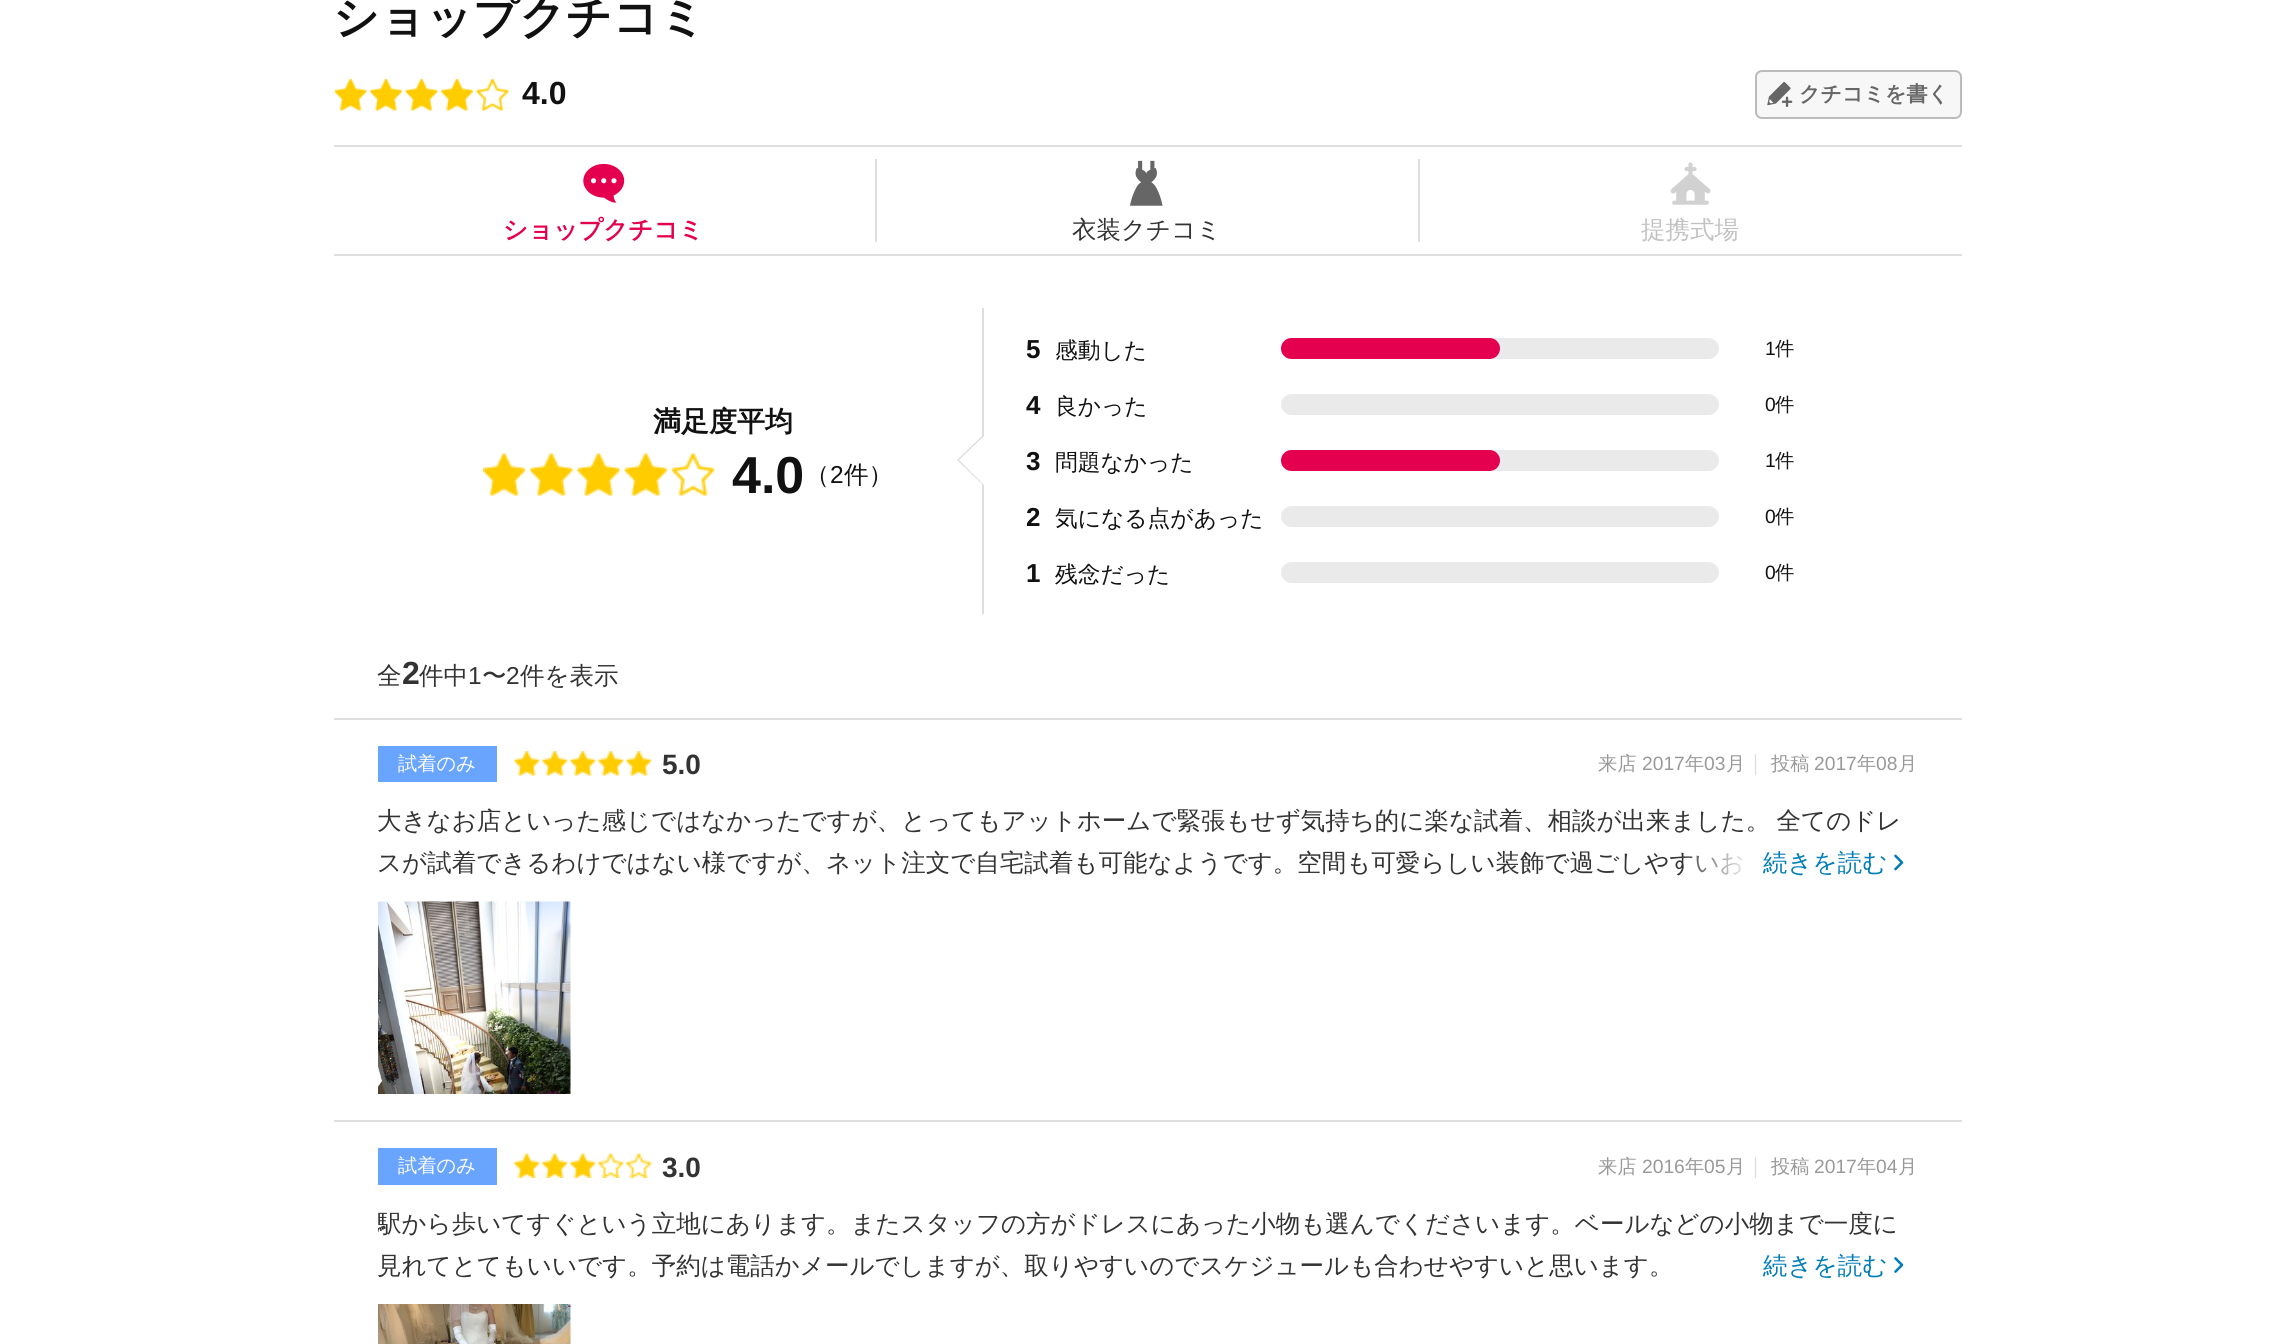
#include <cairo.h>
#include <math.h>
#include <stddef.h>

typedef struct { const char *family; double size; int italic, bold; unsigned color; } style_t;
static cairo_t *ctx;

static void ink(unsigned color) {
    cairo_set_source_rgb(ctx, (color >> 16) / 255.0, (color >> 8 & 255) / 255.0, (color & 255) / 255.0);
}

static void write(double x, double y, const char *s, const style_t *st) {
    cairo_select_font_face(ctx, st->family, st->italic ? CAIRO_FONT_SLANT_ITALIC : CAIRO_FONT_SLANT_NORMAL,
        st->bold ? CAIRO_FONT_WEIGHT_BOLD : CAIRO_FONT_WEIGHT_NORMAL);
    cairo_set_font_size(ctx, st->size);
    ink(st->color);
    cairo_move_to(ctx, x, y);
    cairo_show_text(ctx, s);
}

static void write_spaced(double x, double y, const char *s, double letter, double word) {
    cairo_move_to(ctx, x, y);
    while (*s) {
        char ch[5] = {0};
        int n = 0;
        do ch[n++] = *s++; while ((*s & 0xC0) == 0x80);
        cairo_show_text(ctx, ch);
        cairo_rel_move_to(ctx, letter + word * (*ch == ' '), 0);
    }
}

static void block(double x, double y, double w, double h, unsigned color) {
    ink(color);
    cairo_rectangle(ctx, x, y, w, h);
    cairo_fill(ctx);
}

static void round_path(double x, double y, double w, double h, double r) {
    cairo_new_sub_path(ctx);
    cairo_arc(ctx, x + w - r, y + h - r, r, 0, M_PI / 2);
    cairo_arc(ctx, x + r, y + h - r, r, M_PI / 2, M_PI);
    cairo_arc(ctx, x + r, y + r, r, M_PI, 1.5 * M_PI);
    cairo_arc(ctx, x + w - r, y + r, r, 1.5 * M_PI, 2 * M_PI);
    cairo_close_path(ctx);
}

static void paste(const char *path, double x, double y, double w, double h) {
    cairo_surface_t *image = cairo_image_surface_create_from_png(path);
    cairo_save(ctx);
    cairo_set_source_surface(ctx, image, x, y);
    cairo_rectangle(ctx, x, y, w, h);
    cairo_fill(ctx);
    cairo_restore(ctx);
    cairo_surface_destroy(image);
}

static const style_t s1 = {"WenQuanYi Zen Hei", 45.5, 0, 1, 0x111111};
static const style_t s2 = {"Liberation Sans", 32, 0, 1, 0x111111};
static const style_t s3 = {"WenQuanYi Zen Hei", 21, 0, 1, 0x666666};
static const style_t s4 = {"WenQuanYi Zen Hei", 24.5, 0, 1, 0xe5004f};
static const style_t s5 = {"WenQuanYi Zen Hei Medium", 24.5, 0, 0, 0x333333};
static const style_t s6 = {"WenQuanYi Zen Hei Medium", 24.5, 0, 0, 0xc2c2c2};
static const style_t s7 = {"WenQuanYi Zen Hei", 28, 0, 1, 0x111111};
static const style_t s8 = {"Liberation Sans", 52, 0, 1, 0x111111};
static const style_t s9 = {"WenQuanYi Zen Hei Medium", 24.5, 0, 0, 0x111111};
static const style_t s10 = {"Liberation Sans", 24.5, 0, 0, 0x111111};
static const style_t s11 = {"Liberation Sans", 26, 0, 1, 0x111111};
static const style_t s12 = {"WenQuanYi Zen Hei Medium", 22.75, 0, 0, 0x111111};
static const style_t s13 = {"Liberation Sans", 19.25, 0, 0, 0x111111};
static const style_t s14 = {"WenQuanYi Zen Hei Medium", 19.25, 0, 0, 0x111111};
static const style_t s15 = {"Liberation Sans", 32, 0, 1, 0x333333};
static const style_t s16 = {"Liberation Sans", 24.5, 0, 0, 0x333333};
static const style_t s17 = {"WenQuanYi Zen Hei Medium", 19.25, 0, 0, 0xffffff};
static const style_t s18 = {"Liberation Sans", 28, 0, 1, 0x333333};
static const style_t s19 = {"WenQuanYi Zen Hei Medium", 19.25, 0, 0, 0x999999};
static const style_t s20 = {"Liberation Sans", 19.25, 0, 0, 0x999999};
static const style_t s21 = {"WenQuanYi Zen Hei Medium", 21, 0, 0, 0xdedede};
static const style_t s22 = {"WenQuanYi Zen Hei Medium", 24.5, 0, 0, 0x007cb7};

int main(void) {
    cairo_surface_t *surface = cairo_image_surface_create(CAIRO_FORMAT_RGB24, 2294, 1344);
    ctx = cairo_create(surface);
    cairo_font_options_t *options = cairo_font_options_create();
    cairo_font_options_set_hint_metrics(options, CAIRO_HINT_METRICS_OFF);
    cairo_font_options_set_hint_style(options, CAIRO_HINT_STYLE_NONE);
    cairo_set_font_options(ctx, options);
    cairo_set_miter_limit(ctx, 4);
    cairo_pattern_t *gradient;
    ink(0xffffff);
    cairo_paint(ctx);
    write(333, 33, "ショップクチコミ", &s1);
    paste("pic1.png", 334, 79, 175, 32);
    write(522, 104, "4.0", &s2);
    ink(0xf7f7f7);
    round_path(1756, 71, 205, 47, 6);
    cairo_fill_preserve(ctx);
    ink(0xbbbbbb);
    cairo_stroke(ctx);
    paste("pic2.png", 1767, 82, 26, 25);
    write(1799, 101, "クチコミを書く", &s3);
    block(334, 145, 1628, 2, 0xdedede);
    block(334, 254, 1628, 2, 0xdedede);
    block(875, 159, 2, 83, 0xdedede);
    paste("pic3.png", 583, 163, 42, 40);
    write(503, 238, "ショップクチコミ", &s4);
    block(1418, 159, 2, 83, 0xdedede);
    paste("pic4.png", 1130, 160, 33, 46);
    write(1072, 238, "衣装クチコミ", &s5);
    paste("pic5.png", 1670, 162, 41, 43);
    write(1641, 238, "提携式場", &s6);
    write(653, 431, "満足度平均", &s7);
    paste("pic6.png", 483, 453, 232, 43);
    write(732, 493, "4.0", &s8);
    write(805, 483, "（", &s9);
    write(830, 483, "2", &s10);
    write(844, 483, "件）", &s9);
    block(982, 308, 2, 306, 0xdedede);
    cairo_new_path(ctx);
    cairo_move_to(ctx, 984, 434);
    cairo_line_to(ctx, 984, 486);
    cairo_line_to(ctx, 957, 460);
    cairo_close_path(ctx);
    cairo_fill(ctx);
    write(1026, 358, "5", &s11);
    write(1055, 358, "感動した", &s12);
    ink(0xeaeaea);
    round_path(1281, 338, 438, 21, 10.5);
    cairo_fill(ctx);
    ink(0xe5004f);
    round_path(1281, 338, 219, 21, 10.5);
    cairo_fill(ctx);
    write(1765, 355, "1", &s13);
    write(1775, 355, "件", &s14);
    write(1026, 414, "4", &s11);
    write(1055, 414, "良かった", &s12);
    ink(0xeaeaea);
    round_path(1281, 394, 438, 21, 10.5);
    cairo_fill(ctx);
    write(1765, 411, "0", &s13);
    write(1775, 411, "件", &s14);
    write(1026, 470, "3", &s11);
    write(1055, 470, "問題なかった", &s12);
    ink(0xeaeaea);
    round_path(1281, 450, 438, 21, 10.5);
    cairo_fill(ctx);
    ink(0xe5004f);
    round_path(1281, 450, 219, 21, 10.5);
    cairo_fill(ctx);
    write(1765, 467, "1", &s13);
    write(1775, 467, "件", &s14);
    write(1026, 526, "2", &s11);
    write(1055, 526, "気になる点があった", &s12);
    ink(0xeaeaea);
    round_path(1281, 506, 438, 21, 10.5);
    cairo_fill(ctx);
    write(1765, 523, "0", &s13);
    write(1775, 523, "件", &s14);
    write(1026, 582, "1", &s11);
    write(1055, 582, "残念だった", &s12);
    ink(0xeaeaea);
    round_path(1281, 562, 438, 21, 10.5);
    cairo_fill(ctx);
    write(1765, 579, "0", &s13);
    write(1775, 579, "件", &s14);
    ink(0xffffff);
    cairo_new_path(ctx);
    cairo_move_to(ctx, 984, 436);
    cairo_line_to(ctx, 984, 485);
    cairo_line_to(ctx, 959, 460);
    cairo_close_path(ctx);
    cairo_fill(ctx);
    write(377, 684, "全", &s5);
    write(402, 684, "2", &s15);
    write(419, 684, "件中", &s5);
    write(468, 684, "1", &s16);
    write(482, 684, "〜", &s5);
    write(506, 684, "2", &s16);
    write(520, 684, "件を表示", &s5);
    block(334, 718, 1628, 2, 0xdedede);
    block(334, 1120, 1628, 2, 0xdedede);
    block(378, 746, 119, 36, 0x69a5ff);
    write(398, 770, "試着のみ", &s17);
    paste("pic7.png", 514, 751, 138, 25);
    write(662, 774, "5.0", &s18);
    write(1598, 770, "来店", &s19);
    write(1642, 770, "2017", &s20);
    write(1685, 770, "年", &s19);
    write(1704, 770, "03", &s20);
    write(1726, 770, "月", &s19);
    write(1745, 770, "｜", &s21);
    write(1771, 770, "投稿", &s19);
    write(1814, 770, "2017", &s20);
    write(1857, 770, "年", &s19);
    write(1876, 770, "08", &s20);
    write(1898, 770, "月", &s19);
    cairo_set_font_size(ctx, 24.5);
    ink(0x333333);
    write_spaced(377, 829, "大きなお店といった感じではなかったですが、とってもアットホームで緊張もせず気持ち的に楽な試着、相談が出来ました。 全てのドレ", 0, -1);
    write(377, 871, "スが試着できるわけではない様ですが、ネット注文で自宅試着も可能なようです。空間も可愛らしい装飾で過ごしやすいお", &s5);
    gradient = cairo_pattern_create_linear(1685, 863, 1909, 863);
    cairo_pattern_add_color_stop_rgba(gradient, 0, 1, 1, 1, 0.1);
    cairo_pattern_add_color_stop_rgba(gradient, 0.3, 1, 1, 1, 1);
    cairo_set_source(ctx, gradient);
    cairo_pattern_destroy(gradient);
    cairo_rectangle(ctx, 1685, 853, 58, 22);
    cairo_fill(ctx);
    write(1763, 871, "続きを読む", &s22);
    paste("pic8.png", 1894, 854, 10, 17);
    paste("pic9.png", 378, 901, 193, 193);
    block(378, 1148, 119, 37, 0x69a5ff);
    write(398, 1172, "試着のみ", &s17);
    paste("pic10.png", 514, 1153, 138, 25);
    write(662, 1177, "3.0", &s18);
    write(1598, 1173, "来店", &s19);
    write(1642, 1173, "2016", &s20);
    write(1685, 1173, "年", &s19);
    write(1704, 1173, "05", &s20);
    write(1726, 1173, "月", &s19);
    write(1745, 1173, "｜", &s21);
    write(1771, 1173, "投稿", &s19);
    write(1814, 1173, "2017", &s20);
    write(1857, 1173, "年", &s19);
    write(1876, 1173, "04", &s20);
    write(1898, 1173, "月", &s19);
    cairo_save(ctx);
    cairo_rectangle(ctx, 378, 1202, 1540, 84);
    cairo_clip(ctx);
    write(377, 1232, "駅から歩いてすぐという立地にあります。またスタッフの方がドレスにあった小物も選んでくださいます。ベールなどの小物まで一度に", &s5);
    cairo_restore(ctx);
    write(377, 1274, "見れてとてもいいです。予約は電話かメールでしますが、取りやすいのでスケジュールも合わせやすいと思います。", &s5);
    write(1763, 1274, "続きを読む", &s22);
    paste("pic11.png", 1894, 1257, 10, 16);
    paste("pic12.png", 378, 1304, 193, 40);
    cairo_surface_write_to_png(surface, "screenshot.png");
    cairo_font_options_destroy(options);
    cairo_destroy(ctx);
    cairo_surface_destroy(surface);
    return 0;
}
